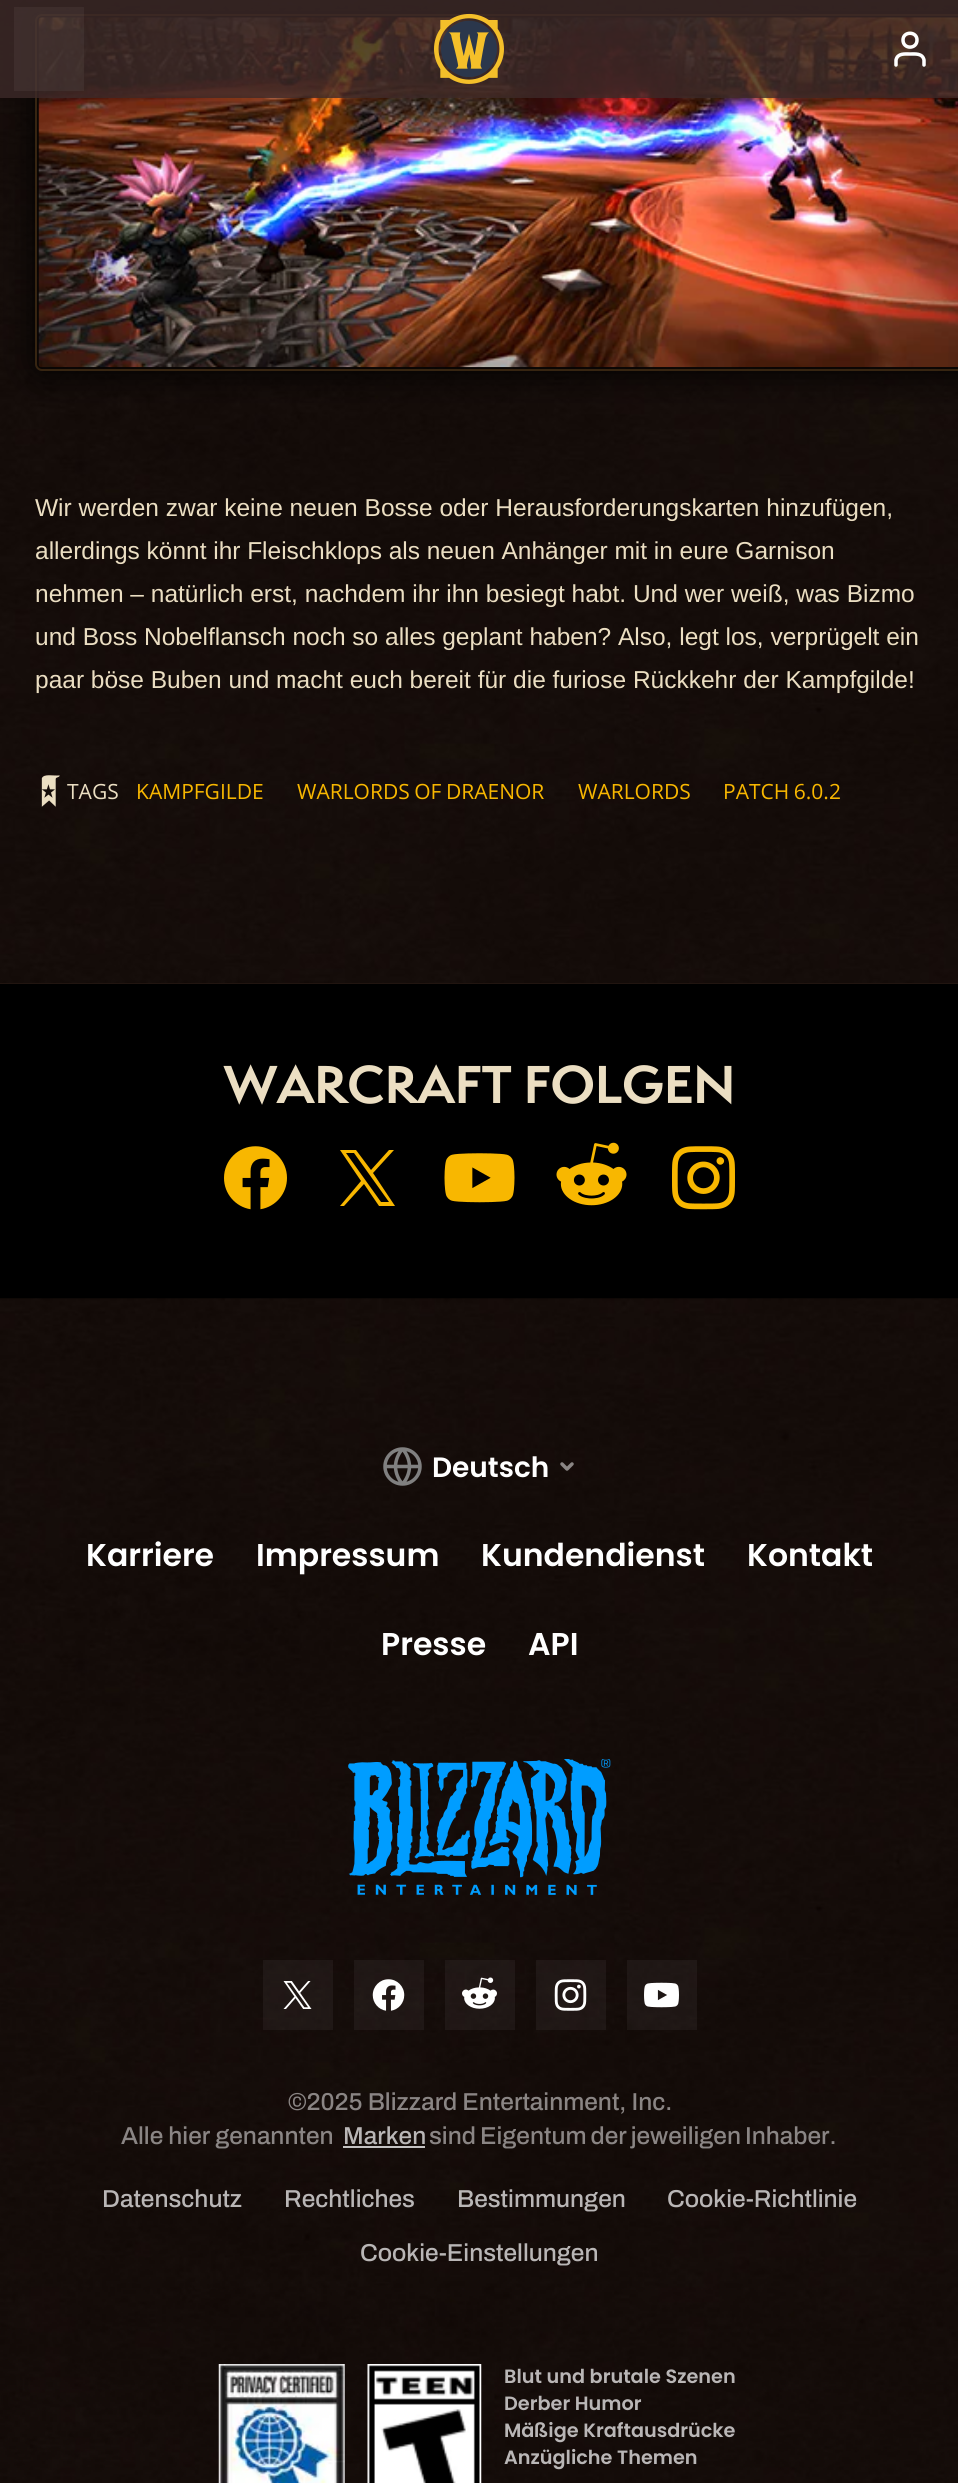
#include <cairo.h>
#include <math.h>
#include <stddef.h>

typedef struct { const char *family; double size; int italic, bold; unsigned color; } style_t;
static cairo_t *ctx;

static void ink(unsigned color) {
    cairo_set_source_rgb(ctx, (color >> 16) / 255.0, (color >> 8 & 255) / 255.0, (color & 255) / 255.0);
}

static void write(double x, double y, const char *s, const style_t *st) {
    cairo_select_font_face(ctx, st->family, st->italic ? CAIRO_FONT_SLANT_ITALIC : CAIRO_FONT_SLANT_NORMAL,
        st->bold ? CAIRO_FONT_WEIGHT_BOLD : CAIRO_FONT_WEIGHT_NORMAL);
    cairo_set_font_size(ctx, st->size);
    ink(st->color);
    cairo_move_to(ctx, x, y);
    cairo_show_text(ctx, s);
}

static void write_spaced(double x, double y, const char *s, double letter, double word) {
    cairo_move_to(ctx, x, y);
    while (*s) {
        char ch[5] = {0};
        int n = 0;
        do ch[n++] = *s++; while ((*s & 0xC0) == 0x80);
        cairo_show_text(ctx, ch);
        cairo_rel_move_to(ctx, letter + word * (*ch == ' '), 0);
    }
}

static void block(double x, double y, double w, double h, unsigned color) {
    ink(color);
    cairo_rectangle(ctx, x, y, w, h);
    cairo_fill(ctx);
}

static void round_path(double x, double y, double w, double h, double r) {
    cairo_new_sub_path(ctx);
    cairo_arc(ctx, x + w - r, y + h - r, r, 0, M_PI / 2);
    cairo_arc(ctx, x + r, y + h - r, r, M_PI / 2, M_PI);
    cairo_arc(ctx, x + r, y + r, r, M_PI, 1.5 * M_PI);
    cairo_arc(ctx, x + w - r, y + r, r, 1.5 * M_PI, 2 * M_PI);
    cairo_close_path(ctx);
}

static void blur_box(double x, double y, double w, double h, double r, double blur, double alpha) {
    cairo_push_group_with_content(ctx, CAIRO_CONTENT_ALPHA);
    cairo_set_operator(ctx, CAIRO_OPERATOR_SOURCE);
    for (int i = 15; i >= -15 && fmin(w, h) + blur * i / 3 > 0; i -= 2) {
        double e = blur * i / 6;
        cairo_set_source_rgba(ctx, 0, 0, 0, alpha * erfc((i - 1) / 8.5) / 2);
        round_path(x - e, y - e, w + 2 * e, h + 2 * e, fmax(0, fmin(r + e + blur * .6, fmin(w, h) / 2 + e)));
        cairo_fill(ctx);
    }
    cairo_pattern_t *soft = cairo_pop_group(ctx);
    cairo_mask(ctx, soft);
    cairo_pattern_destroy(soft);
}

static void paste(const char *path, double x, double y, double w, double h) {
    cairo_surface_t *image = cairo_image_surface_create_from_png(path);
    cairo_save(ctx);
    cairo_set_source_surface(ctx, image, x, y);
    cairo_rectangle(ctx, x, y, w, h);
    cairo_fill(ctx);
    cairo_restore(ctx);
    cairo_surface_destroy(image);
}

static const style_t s1 = {"Liberation Sans", 24.5, 0, 0, 0xebdec2};
static const style_t s2 = {"Open Sans", 21, 0, 0, 0xebdec2};
static const style_t s3 = {"Open Sans", 21, 0, 0, 0xf8b700};
static const style_t s4 = {"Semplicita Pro", 49, 0, 1, 0xebdec2};
static const style_t s5 = {"Poppins SemiBold", 28, 0, 0, 0xffffff};
static const style_t s6 = {"Poppins SemiBold", 31.5, 0, 0, 0xffffff};
static const style_t s7 = {"Archivo Medium", 24.5, 0, 0, 0x8a8584};
static const style_t s8 = {"Archivo Medium", 24.5, 0, 0, 0xb9b6b6};
static const style_t s9 = {"Poppins SemiBold", 19.25, 0, 0, 0xb9b6b6};

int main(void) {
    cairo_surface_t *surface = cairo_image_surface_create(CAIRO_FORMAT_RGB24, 958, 2483);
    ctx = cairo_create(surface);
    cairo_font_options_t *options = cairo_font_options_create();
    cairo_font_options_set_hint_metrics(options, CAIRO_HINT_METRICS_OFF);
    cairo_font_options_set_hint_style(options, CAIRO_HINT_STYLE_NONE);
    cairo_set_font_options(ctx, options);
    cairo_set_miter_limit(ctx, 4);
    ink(0x000000);
    cairo_paint(ctx);
    paste("pic2.png", 0, 0, 958, 983);
    blur_box(35, 14, 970, 357, 7, 17.5, 1);
    round_path(36, 15, 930, 355, 6);
    ink(0x372511);
    cairo_stroke(ctx);
    paste("pic3.png", 38, 17, 920, 351);
    cairo_set_source_rgba(ctx, 0.235, 0.165, 0.161, 0.8);
    cairo_rectangle(ctx, 0, 0, 958, 98);
    cairo_fill(ctx);
    cairo_set_source_rgba(ctx, 1, 1, 1, 0.05);
    cairo_rectangle(ctx, 14, 7, 70, 84);
    cairo_fill(ctx);
    paste("pic1.png", 434, 13, 70, 71);
    cairo_new_path(ctx);
    cairo_move_to(ctx, 924, 65);
    cairo_line_to(ctx, 924, 60);
    cairo_curve_to(ctx, 922.5, 53, 915, 54, 910, 54);
    cairo_curve_to(ctx, 905, 54, 897.5, 53, 896, 60);
    cairo_line_to(ctx, 896, 65);
    cairo_move_to(ctx, 917, 40);
    cairo_curve_to(ctx, 917, 49.5, 903, 49.5, 903, 40);
    cairo_curve_to(ctx, 903, 31, 917, 31, 917, 40);
    ink(0xffffff);
    cairo_set_line_width(ctx, 3.5);
    cairo_set_line_cap(ctx, CAIRO_LINE_CAP_ROUND);
    cairo_set_line_join(ctx, CAIRO_LINE_JOIN_ROUND);
    cairo_stroke(ctx);
    block(0, 983, 958, 1, 0x211510);
    write(35, 516, "Wir werden zwar keine neuen Bosse oder Herausforderungskarten hinzufügen,", &s1);
    write_spaced(35, 559, "allerdings könnt ihr Fleischklops als neuen Anhänger mit in eure Garnison", 0, -0.1);
    write(35, 602, "nehmen – natürlich erst, nachdem ihr ihn besiegt habt. Und wer weiß, was Bizmo", &s1);
    write(35, 645, "und Boss Nobelflansch noch so alles geplant haben? Also, legt los, verprügelt ein", &s1);
    write(35, 688, "paar böse Buben und macht euch bereit für die furiose Rückkehr der Kampfgilde!", &s1);
    paste("pic4.png", 41, 775, 19, 32);
    write(67, 799, "TAGS", &s2);
    write(136, 799, "KAMPFGILDE", &s3);
    write_spaced(297, 799, "WARLORDS OF DRAENOR", 0, -1);
    write(578, 799, "WARLORDS", &s3);
    write_spaced(723, 799, "PATCH 6.0.2", 0, -1);
    write(224, 1103, "WARCRAFT FOLGEN", &s4);
    paste("pic5.png", 224, 1146, 63, 64);
    ink(0xf8b700);
    cairo_new_path(ctx);
    cairo_move_to(ctx, 373, 1173);
    cairo_line_to(ctx, 394, 1150);
    cairo_line_to(ctx, 389, 1150);
    cairo_line_to(ctx, 371, 1170);
    cairo_line_to(ctx, 356, 1150);
    cairo_line_to(ctx, 340, 1150);
    cairo_line_to(ctx, 361, 1181);
    cairo_line_to(ctx, 340, 1206);
    cairo_line_to(ctx, 344, 1206);
    cairo_line_to(ctx, 364, 1184);
    cairo_line_to(ctx, 379, 1206);
    cairo_line_to(ctx, 395, 1206);
    cairo_move_to(ctx, 346, 1153);
    cairo_line_to(ctx, 354, 1153);
    cairo_line_to(ctx, 389, 1202);
    cairo_line_to(ctx, 381, 1202);
    cairo_fill(ctx);
    paste("pic6.png", 444, 1153, 71, 50);
    paste("pic7.png", 556, 1142, 71, 64);
    paste("pic8.png", 672, 1146, 63, 64);
    paste("pic9.png", 0, 1298, 958, 1185);
    paste("pic10.png", 383, 1447, 39, 39);
    write(432, 1477, "Deutsch", &s5);
    cairo_new_path(ctx);
    cairo_move_to(ctx, 562, 1464);
    cairo_line_to(ctx, 567, 1469);
    cairo_line_to(ctx, 572, 1464);
    cairo_set_source_rgba(ctx, 1, 1, 1, 0.5);
    cairo_stroke(ctx);
    write(86, 1566, "Karriere", &s6);
    write(256, 1566, "Impressum", &s6);
    write(481, 1566, "Kundendienst", &s6);
    write(747, 1566, "Kontakt", &s6);
    write(381, 1655, "Presse", &s6);
    write(528, 1655, "API", &s6);
    paste("pic11.png", 348, 1759, 263, 136);
    cairo_set_source_rgba(ctx, 1, 1, 1, 0.05);
    cairo_rectangle(ctx, 263, 1960, 70, 70);
    cairo_fill(ctx);
    paste("pic12.png", 283, 1981, 29, 28);
    cairo_rectangle(ctx, 354, 1960, 70, 70);
    cairo_fill(ctx);
    paste("pic13.png", 372, 1979, 33, 32);
    cairo_rectangle(ctx, 445, 1960, 70, 70);
    cairo_fill(ctx);
    paste("pic14.png", 462, 1977, 35, 32);
    cairo_rectangle(ctx, 536, 1960, 70, 70);
    cairo_fill(ctx);
    paste("pic15.png", 554, 1979, 33, 32);
    cairo_rectangle(ctx, 627, 1960, 70, 70);
    cairo_fill(ctx);
    paste("pic16.png", 644, 1982, 35, 26);
    write(288, 2110, "©2025 Blizzard Entertainment, Inc.", &s7);
    write(121, 2144, "Alle hier genannten", &s7);
    write(343, 2144, "Marken", &s8);
    block(343, 2146, 82, 2, 0xc4c2c2);
    ink(0x8a8584);
    write_spaced(429, 2144, "sind Eigentum der jeweiligen Inhaber.", 0, -1);
    write(102, 2207, "Datenschutz", &s8);
    write(284, 2207, "Rechtliches", &s8);
    write(457, 2207, "Bestimmungen", &s8);
    write(667, 2207, "Cookie-Richtlinie", &s8);
    write(360, 2261, "Cookie-Einstellungen", &s8);
    paste("pic17.png", 218, 2364, 127, 119);
    paste("pic18.png", 367, 2364, 115, 119);
    write(504, 2383, "Blut und brutale Szenen", &s9);
    write(504, 2410, "Derber Humor", &s9);
    write(504, 2437, "Mäßige Kraftausdrücke", &s9);
    write(504, 2464, "Anzügliche Themen", &s9);
    cairo_surface_write_to_png(surface, "screenshot.png");
    cairo_font_options_destroy(options);
    cairo_destroy(ctx);
    cairo_surface_destroy(surface);
    return 0;
}
